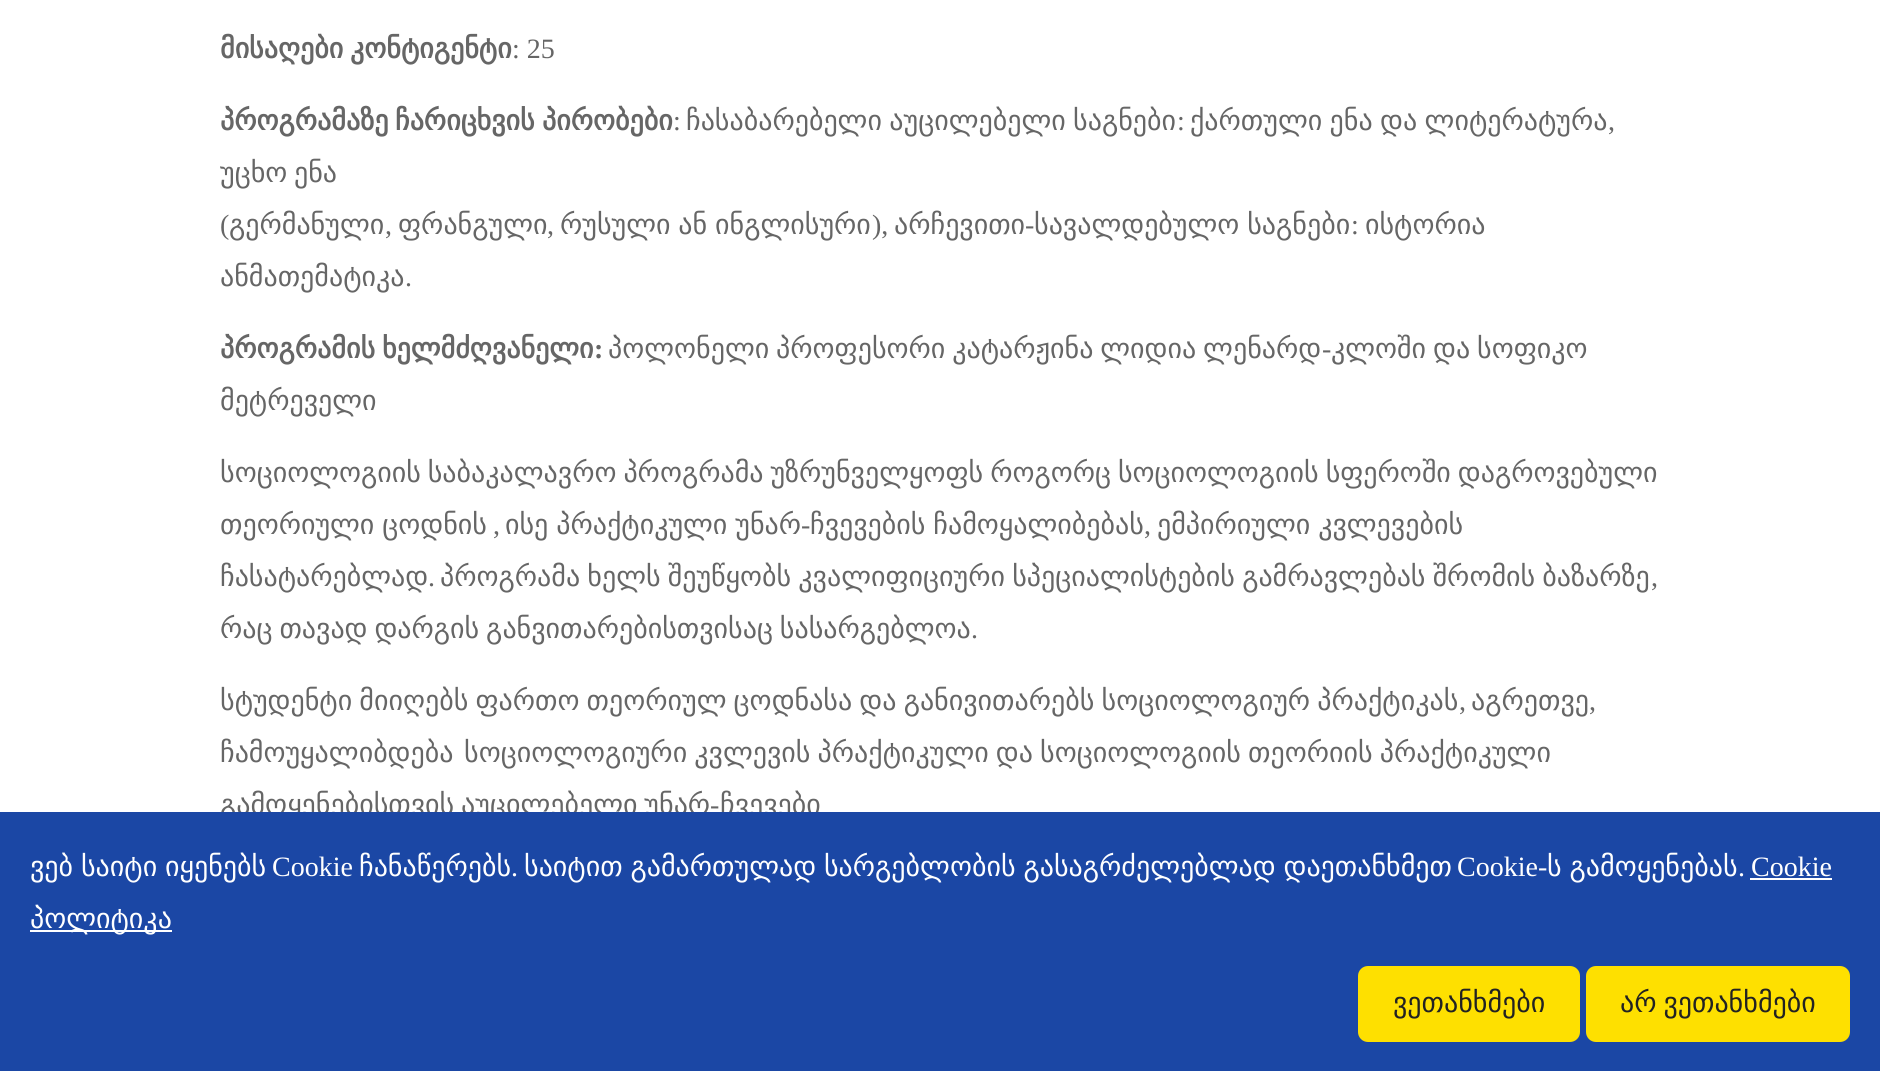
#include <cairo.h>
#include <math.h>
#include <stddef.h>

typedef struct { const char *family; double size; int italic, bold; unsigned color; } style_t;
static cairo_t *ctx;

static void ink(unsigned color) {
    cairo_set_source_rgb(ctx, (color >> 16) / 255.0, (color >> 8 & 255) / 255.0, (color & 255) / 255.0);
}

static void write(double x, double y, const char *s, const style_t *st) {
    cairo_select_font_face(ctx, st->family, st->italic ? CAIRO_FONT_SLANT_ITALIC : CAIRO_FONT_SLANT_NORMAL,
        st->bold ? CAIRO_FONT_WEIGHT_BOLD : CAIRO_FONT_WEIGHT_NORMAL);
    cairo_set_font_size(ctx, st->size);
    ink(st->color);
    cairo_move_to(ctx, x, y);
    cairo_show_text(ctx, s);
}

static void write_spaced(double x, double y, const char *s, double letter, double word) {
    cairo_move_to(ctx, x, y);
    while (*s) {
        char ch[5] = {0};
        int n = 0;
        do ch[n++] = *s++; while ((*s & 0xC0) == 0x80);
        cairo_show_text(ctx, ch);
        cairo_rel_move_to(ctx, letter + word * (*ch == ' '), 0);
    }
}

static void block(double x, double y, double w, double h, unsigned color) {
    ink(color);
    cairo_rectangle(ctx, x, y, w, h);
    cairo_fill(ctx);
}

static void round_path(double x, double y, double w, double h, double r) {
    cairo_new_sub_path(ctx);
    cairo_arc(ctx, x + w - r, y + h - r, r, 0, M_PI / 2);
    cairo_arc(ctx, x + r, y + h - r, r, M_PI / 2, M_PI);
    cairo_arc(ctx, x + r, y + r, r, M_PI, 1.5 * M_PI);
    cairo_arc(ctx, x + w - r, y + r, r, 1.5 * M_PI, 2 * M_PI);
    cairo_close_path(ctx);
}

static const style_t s1 = {"DejaVu Sans", 28, 0, 1, 0x666666};
static const style_t s2 = {"Liberation Serif", 28, 0, 0, 0x666666};
static const style_t s3 = {"DejaVu Sans", 28, 0, 0, 0x666666};
static const style_t s4 = {"Liberation Serif", 28, 0, 1, 0x666666};
static const style_t s5 = {"Liberation Serif", 28, 0, 0, 0xffffff};
static const style_t s6 = {"DejaVu Sans", 28, 0, 0, 0xffffff};
static const style_t s7 = {"DejaVu Sans", 28, 0, 0, 0x222222};

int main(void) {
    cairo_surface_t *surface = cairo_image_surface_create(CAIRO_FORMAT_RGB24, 1880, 1071);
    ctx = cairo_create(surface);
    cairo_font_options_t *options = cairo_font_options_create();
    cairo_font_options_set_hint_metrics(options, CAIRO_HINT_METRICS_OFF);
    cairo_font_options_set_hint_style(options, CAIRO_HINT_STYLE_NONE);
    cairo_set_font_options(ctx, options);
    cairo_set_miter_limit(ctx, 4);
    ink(0xffffff);
    cairo_paint(ctx);
    write(220, 58, "მისაღები", &s1);
    write(350, 58, "კონტიგენტი", &s1);
    write(512, 58, ": 25", &s2);
    write(220, 130, "პროგრამაზე", &s1);
    write(395, 130, "ჩარიცხვის", &s1);
    write(542, 130, "პირობები", &s1);
    write(673, 130, ":", &s2);
    cairo_select_font_face(ctx, "DejaVu Sans", CAIRO_FONT_SLANT_NORMAL, CAIRO_FONT_WEIGHT_NORMAL);
    write_spaced(686, 130, "ჩასაბარებელი აუცილებელი საგნები", 0, -1.5);
    write(1177, 130, ":", &s2);
    cairo_select_font_face(ctx, "DejaVu Sans", CAIRO_FONT_SLANT_NORMAL, CAIRO_FONT_WEIGHT_NORMAL);
    write_spaced(1190, 130, "ქართული ენა და ლიტერატურა", 0, -1.5);
    write(1608, 130, ",", &s2);
    write(220, 182, "უცხო", &s3);
    write(294, 182, "ენა", &s3);
    write(220, 234, "(", &s2);
    write(229, 234, "გერმანული", &s3);
    write(398, 234, "ფრანგული", &s3);
    write_spaced(560, 234, "რუსული ან ინგლისური", 0, -1);
    write(872, 234, "),", &s2);
    write(894, 234, "არჩევითი", &s3);
    write(1025, 234, "-", &s2);
    cairo_select_font_face(ctx, "DejaVu Sans", CAIRO_FONT_SLANT_NORMAL, CAIRO_FONT_WEIGHT_NORMAL);
    write_spaced(1034, 234, "სავალდებულო საგნები", 0, -1);
    write(1351, 234, ":", &s2);
    write(1365, 234, "ისტორია", &s3);
    write(385, 234, ",", &s2);
    write(547, 234, ",", &s2);
    write(220, 286, "ანმათემატიკა", &s3);
    write(405, 286, ".", &s2);
    cairo_select_font_face(ctx, "DejaVu Sans", CAIRO_FONT_SLANT_NORMAL, CAIRO_FONT_WEIGHT_BOLD);
    write_spaced(220, 358, "პროგრამის ხელმძღვანელი", 0, -2);
    write(594, 358, ":", &s4);
    cairo_select_font_face(ctx, "DejaVu Sans", CAIRO_FONT_SLANT_NORMAL, CAIRO_FONT_WEIGHT_NORMAL);
    write_spaced(608, 358, "პოლონელი პროფესორი კატარჟინა ლიდია ლენარდ", 0, -2);
    write(1322, 358, "-", &s2);
    cairo_select_font_face(ctx, "DejaVu Sans", CAIRO_FONT_SLANT_NORMAL, CAIRO_FONT_WEIGHT_NORMAL);
    write_spaced(1331, 358, "კლოში და სოფიკო", 0, -2);
    write(220, 410, "მეტრეველი", &s3);
    write_spaced(220, 482, "სოციოლოგიის საბაკალავრო პროგრამა უზრუნველყოფს როგორც სოციოლოგიის სფეროში დაგროვებული", 0, -2);
    write_spaced(220, 534, "თეორიული ცოდნის", 0, -1);
    write_spaced(505, 534, "ისე პრაქტიკული უნარ", 0, -1);
    write(801, 534, "-", &s2);
    cairo_select_font_face(ctx, "DejaVu Sans", CAIRO_FONT_SLANT_NORMAL, CAIRO_FONT_WEIGHT_NORMAL);
    write_spaced(810, 534, "ჩვევების ჩამოყალიბებას", 0, -1);
    write_spaced(1157, 534, "ემპირიული კვლევების", 0, -1);
    write(493, 534, ",", &s2);
    write(1144, 534, ",", &s2);
    write(220, 586, "ჩასატარებლად", &s3);
    write(428, 586, ".", &s2);
    cairo_select_font_face(ctx, "DejaVu Sans", CAIRO_FONT_SLANT_NORMAL, CAIRO_FONT_WEIGHT_NORMAL);
    write_spaced(440, 586, "პროგრამა ხელს შეუწყობს კვალიფიციური სპეციალისტების გამრავლებას შრომის ბაზარზე", 0, -1.75);
    write(1651, 586, ",", &s2);
    cairo_select_font_face(ctx, "DejaVu Sans", CAIRO_FONT_SLANT_NORMAL, CAIRO_FONT_WEIGHT_NORMAL);
    write_spaced(220, 638, "რაც თავად დარგის განვითარებისთვისაც სასარგებლოა", 0, -2);
    write(971, 638, ".", &s2);
    cairo_select_font_face(ctx, "DejaVu Sans", CAIRO_FONT_SLANT_NORMAL, CAIRO_FONT_WEIGHT_NORMAL);
    write_spaced(220, 710, "სტუდენტი მიიღებს ფართო თეორიულ ცოდნასა და განივითარებს სოციოლოგიურ პრაქტიკას", 0, -1.75);
    write(1459, 710, ",", &s2);
    write(1471, 710, "აგრეთვე", &s3);
    write(1589, 710, ",", &s2);
    write(220, 762, "ჩამოუყალიბდება", &s3);
    write_spaced(464, 762, "სოციოლოგიური კვლევის პრაქტიკული და სოციოლოგიის თეორიის პრაქტიკული", 0, -1.75);
    write_spaced(220, 814, "გამოყენებისთვის აუცილებელი უნარ", 0, -2);
    write(710, 814, "-", &s2);
    write(720, 814, "ჩვევები", &s3);
    block(0, 812, 1880, 259, 0x1b47a5);
    ink(0xffffff);
    write_spaced(30, 876, "ვებ საიტი იყენებს", 0, -1);
    write(272, 876, "Cookie", &s5);
    write(359, 876, "ჩანაწერებს", &s6);
    write(511, 876, ".", &s5);
    cairo_select_font_face(ctx, "DejaVu Sans", CAIRO_FONT_SLANT_NORMAL, CAIRO_FONT_WEIGHT_NORMAL);
    write_spaced(524, 876, "საიტით გამართულად სარგებლობის გასაგრძელებლად დაეთანხმეთ", 0, -1);
    write(1457, 876, "Cookie-", &s5);
    cairo_select_font_face(ctx, "DejaVu Sans", CAIRO_FONT_SLANT_NORMAL, CAIRO_FONT_WEIGHT_NORMAL);
    write_spaced(1547, 876, "ს გამოყენებას", 0, -1);
    write(1738, 876, ".", &s5);
    write(1751, 876, "Cookie", &s5);
    block(1750, 878, 82, 2, 0xffffff);
    block(30, 930, 142, 2, 0xffffff);
    write(30, 928, "პოლიტიკა", &s6);
    ink(0xfee000);
    round_path(1358, 966, 222, 76, 10);
    cairo_fill(ctx);
    write(1393, 1012, "ვეთანხმები", &s7);
    ink(0xfee000);
    round_path(1586, 966, 264, 76, 10);
    cairo_fill(ctx);
    ink(0x222222);
    write_spaced(1620, 1012, "არ ვეთანხმები", 0, -2);
    cairo_surface_write_to_png(surface, "screenshot.png");
    cairo_font_options_destroy(options);
    cairo_destroy(ctx);
    cairo_surface_destroy(surface);
    return 0;
}
